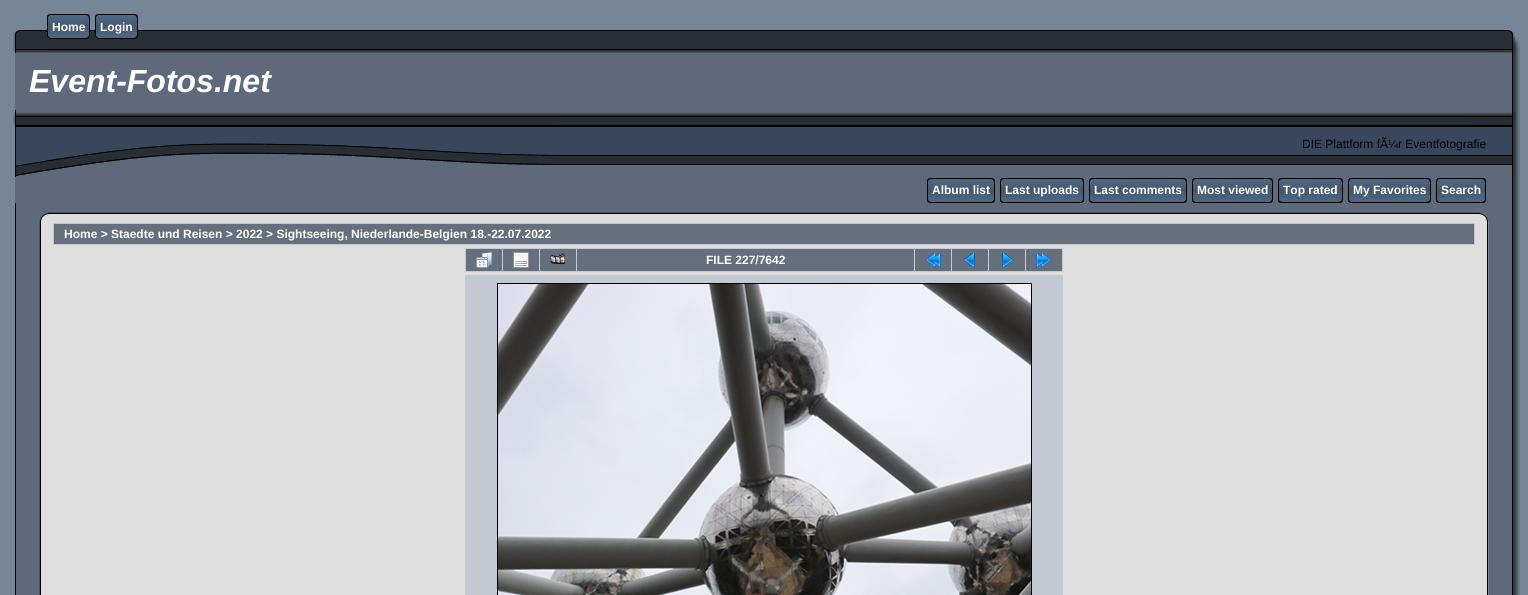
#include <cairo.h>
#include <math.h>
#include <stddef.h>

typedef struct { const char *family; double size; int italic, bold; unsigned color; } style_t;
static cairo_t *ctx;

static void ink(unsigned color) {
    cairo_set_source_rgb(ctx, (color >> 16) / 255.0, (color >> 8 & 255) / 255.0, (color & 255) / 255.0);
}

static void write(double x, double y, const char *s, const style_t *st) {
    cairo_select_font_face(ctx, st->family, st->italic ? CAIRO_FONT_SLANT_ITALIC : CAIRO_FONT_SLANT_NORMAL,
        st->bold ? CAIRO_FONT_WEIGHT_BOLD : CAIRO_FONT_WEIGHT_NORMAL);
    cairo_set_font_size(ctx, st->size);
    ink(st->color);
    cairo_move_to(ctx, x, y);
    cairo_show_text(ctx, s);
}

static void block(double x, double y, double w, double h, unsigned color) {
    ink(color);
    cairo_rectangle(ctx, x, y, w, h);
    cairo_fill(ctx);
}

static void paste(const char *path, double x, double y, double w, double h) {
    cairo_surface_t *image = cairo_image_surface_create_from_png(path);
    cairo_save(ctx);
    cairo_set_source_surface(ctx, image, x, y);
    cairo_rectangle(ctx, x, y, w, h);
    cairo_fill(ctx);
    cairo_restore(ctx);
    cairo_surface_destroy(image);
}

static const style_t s1 = {"Liberation Sans", 12, 0, 1, 0xffffff};
static const style_t s2 = {"Liberation Sans", 32, 1, 1, 0xffffff};
static const style_t s3 = {"Liberation Sans", 12, 0, 0, 0x000000};

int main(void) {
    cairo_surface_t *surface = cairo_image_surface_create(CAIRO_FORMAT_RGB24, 1528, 595);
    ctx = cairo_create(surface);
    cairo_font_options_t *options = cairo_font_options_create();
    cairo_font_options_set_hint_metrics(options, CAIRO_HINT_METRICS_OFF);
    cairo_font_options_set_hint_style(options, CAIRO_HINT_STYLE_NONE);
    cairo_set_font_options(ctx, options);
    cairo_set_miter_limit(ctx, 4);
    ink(0x758698);
    cairo_paint(ctx);
    paste("pic1.png", 42, 30, 1444, 23);
    paste("pic2.png", 47, 14, 5, 25);
    paste("pic3.png", 52, 14, 33, 25);
    write(52, 31, "Home", &s1);
    paste("pic4.png", 85, 14, 5, 25);
    paste("pic2.png", 95, 14, 5, 25);
    paste("pic5.png", 100, 14, 33, 25);
    write(100, 31, "Login", &s1);
    paste("pic4.png", 133, 14, 5, 25);
    paste("pic6.png", 13, 30, 29, 23);
    paste("pic7.png", 1486, 30, 34, 23);
    block(15, 53, 1497, 57, 0x5e697b);
    paste("pic8.png", 1512, 53, 8, 57);
    write(29, 92, "Event-Fotos.net", &s2);
    paste("pic9.png", 13, 110, 547, 67);
    paste("pic10.png", 560, 110, 926, 67);
    write(1302, 148, "DIE Plattform fÃ¼r Eventfotografie", &s3);
    paste("pic11.png", 1486, 110, 34, 67);
    block(15, 177, 1471, 26, 0x5e697b);
    paste("pic12.png", 1486, 177, 34, 26);
    paste("pic13.png", 927, 178, 5, 25);
    paste("pic14.png", 932, 178, 58, 25);
    write(932, 194, "Album list", &s1);
    paste("pic15.png", 990, 178, 5, 25);
    paste("pic13.png", 1000, 178, 5, 25);
    paste("pic16.png", 1005, 178, 74, 25);
    write(1005, 194, "Last uploads", &s1);
    paste("pic15.png", 1079, 178, 5, 25);
    paste("pic13.png", 1089, 178, 5, 25);
    paste("pic17.png", 1094, 178, 88, 25);
    write(1094, 194, "Last comments", &s1);
    paste("pic15.png", 1182, 178, 5, 25);
    paste("pic13.png", 1192, 178, 5, 25);
    paste("pic18.png", 1197, 178, 71, 25);
    write(1197, 194, "Most viewed", &s1);
    paste("pic15.png", 1268, 178, 5, 25);
    paste("pic13.png", 1278, 178, 5, 25);
    paste("pic19.png", 1283, 178, 55, 25);
    write(1283, 194, "Top rated", &s1);
    paste("pic15.png", 1338, 178, 5, 25);
    paste("pic13.png", 1348, 178, 5, 25);
    paste("pic20.png", 1353, 178, 73, 25);
    write(1353, 194, "My Favorites", &s1);
    paste("pic15.png", 1426, 178, 5, 25);
    paste("pic13.png", 1436, 178, 5, 25);
    paste("pic21.png", 1441, 178, 40, 25);
    write(1441, 194, "Search", &s1);
    paste("pic15.png", 1481, 178, 5, 25);
    paste("pic22.png", 15, 203, 27, 18);
    paste("pic23.png", 42, 203, 14, 18);
    paste("pic24.png", 56, 203, 1416, 18);
    paste("pic25.png", 1472, 203, 14, 18);
    paste("pic26.png", 1486, 203, 34, 18);
    paste("pic27.png", 15, 221, 27, 374);
    block(42, 221, 1444, 374, 0xdedede);
    block(53, 223, 1422, 22, 0xc2c9d3);
    block(54, 224, 1420, 20, 0x66707c);
    write(64, 238, "Home > Staedte und Reisen > 2022 > Sightseeing, Niederlande-Belgien 18.-22.07.2022", &s1);
    block(465, 248, 598, 24, 0xc2c9d3);
    block(466, 249, 36, 22, 0x66707c);
    paste("pic28.png", 476, 252, 16, 16);
    block(503, 249, 36, 22, 0x66707c);
    paste("pic29.png", 513, 252, 16, 16);
    block(540, 249, 36, 22, 0x66707c);
    paste("pic30.png", 550, 253, 16, 12);
    block(577, 249, 337, 22, 0x66707c);
    write(706, 264, "FILE 227/7642", &s1);
    block(915, 249, 36, 22, 0x66707c);
    paste("pic31.png", 925, 252, 16, 16);
    block(952, 249, 36, 22, 0x66707c);
    paste("pic32.png", 963, 252, 12, 16);
    block(989, 249, 36, 22, 0x66707c);
    paste("pic33.png", 1002, 252, 12, 16);
    block(1026, 249, 36, 22, 0x66707c);
    paste("pic34.png", 1036, 252, 16, 16);
    block(465, 275, 598, 320, 0xc2c9d3);
    cairo_rectangle(ctx, 497.5, 283.5, 534, 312);
    ink(0x000000);
    cairo_set_line_width(ctx, 1);
    cairo_stroke(ctx);
    paste("pic35.png", 498, 284, 533, 311);
    paste("pic36.png", 1486, 221, 34, 374);
    cairo_surface_write_to_png(surface, "screenshot.png");
    cairo_font_options_destroy(options);
    cairo_destroy(ctx);
    cairo_surface_destroy(surface);
    return 0;
}
